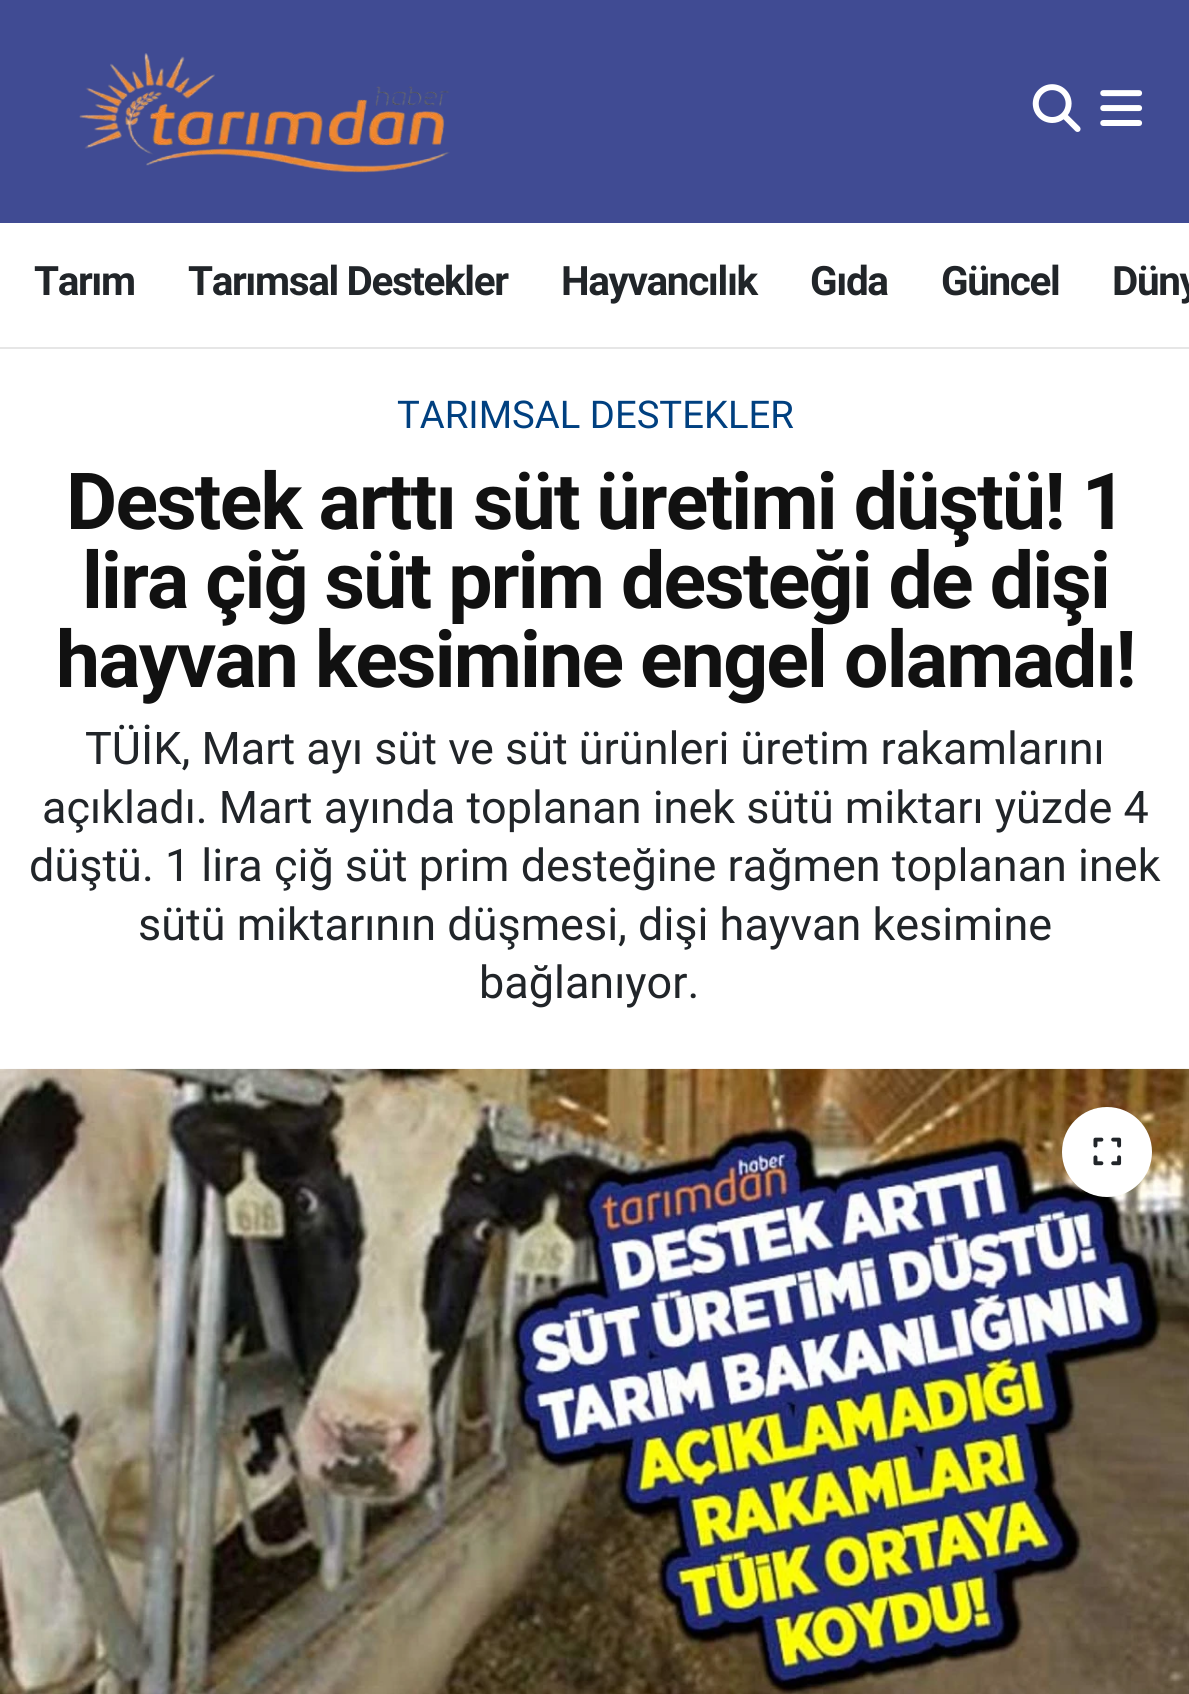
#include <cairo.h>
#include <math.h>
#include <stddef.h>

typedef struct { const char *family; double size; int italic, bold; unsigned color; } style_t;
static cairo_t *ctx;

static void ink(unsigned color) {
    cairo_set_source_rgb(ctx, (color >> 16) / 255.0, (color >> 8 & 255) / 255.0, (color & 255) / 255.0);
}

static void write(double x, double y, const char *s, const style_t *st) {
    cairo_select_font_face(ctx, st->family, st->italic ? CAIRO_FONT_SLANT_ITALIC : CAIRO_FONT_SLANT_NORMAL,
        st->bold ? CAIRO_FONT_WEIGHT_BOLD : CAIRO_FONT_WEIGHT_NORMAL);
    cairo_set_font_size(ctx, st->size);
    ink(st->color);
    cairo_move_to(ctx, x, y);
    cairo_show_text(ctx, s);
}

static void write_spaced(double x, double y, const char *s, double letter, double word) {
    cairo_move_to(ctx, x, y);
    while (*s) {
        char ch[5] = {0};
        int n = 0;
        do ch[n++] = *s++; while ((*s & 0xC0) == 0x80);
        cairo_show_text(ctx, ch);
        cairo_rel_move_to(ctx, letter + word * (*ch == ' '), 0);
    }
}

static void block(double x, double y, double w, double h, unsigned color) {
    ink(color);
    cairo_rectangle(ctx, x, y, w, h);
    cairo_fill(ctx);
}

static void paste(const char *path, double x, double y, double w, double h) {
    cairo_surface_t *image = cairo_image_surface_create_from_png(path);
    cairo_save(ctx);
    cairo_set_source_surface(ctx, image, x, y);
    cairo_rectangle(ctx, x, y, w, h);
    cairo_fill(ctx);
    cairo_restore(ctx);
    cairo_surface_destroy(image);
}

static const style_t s1 = {"Roboto", 38.25, 0, 0, 0x004080};
static const style_t s2 = {"Roboto", 45, 0, 0, 0x212529};

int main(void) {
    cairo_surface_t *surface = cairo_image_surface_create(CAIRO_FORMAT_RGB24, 1189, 1694);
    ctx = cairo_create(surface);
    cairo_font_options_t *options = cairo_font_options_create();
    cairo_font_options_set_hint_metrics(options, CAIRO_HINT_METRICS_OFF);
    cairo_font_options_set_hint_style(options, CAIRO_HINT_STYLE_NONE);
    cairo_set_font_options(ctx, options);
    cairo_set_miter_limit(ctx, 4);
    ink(0xffffff);
    cairo_paint(ctx);
    block(0, 0, 1189, 223, 0x404b93);
    paste("pic1.png", 79, 53, 371, 120);
    paste("pic2.png", 1032, 84, 49, 48);
    paste("pic3.png", 1100, 90, 43, 36);
    block(0, 347, 1189, 2, 0xe6e6e6);
    cairo_select_font_face(ctx, "Roboto", CAIRO_FONT_SLANT_NORMAL, CAIRO_FONT_WEIGHT_BOLD);
    cairo_set_font_size(ctx, 40.5);
    ink(0x212529);
    write_spaced(34, 295, "Tarım", -1.4, 0);
    write_spaced(188, 295, "Tarımsal Destekler", -1.4, 0);
    write_spaced(561, 295, "Hayvancılık", -1.4, 0);
    write_spaced(810, 295, "Gıda", -1.4, 0);
    write_spaced(941, 295, "Güncel", -1.4, 0);
    write_spaced(1112, 295, "Düny", -1.4, 0);
    write(397, 428, "TARIMSAL DESTEKLER", &s1);
    cairo_select_font_face(ctx, "Roboto", CAIRO_FONT_SLANT_NORMAL, CAIRO_FONT_WEIGHT_BOLD);
    cairo_set_font_size(ctx, 78.75);
    ink(0x111111);
    write_spaced(66, 529, "Destek arttı süt üretimi düştü! 1", -1.8, 0);
    write_spaced(82, 608, "lira çiğ süt prim desteği de dişi", -1.8, 0);
    write_spaced(56, 687, "hayvan kesimine engel olamadı!", -1.8, 0);
    write(85, 764, "TÜİK, Mart ayı süt ve süt ürünleri üretim rakamlarını", &s2);
    write(42, 823, "açıkladı. Mart ayında toplanan inek sütü miktarı yüzde 4", &s2);
    write(29, 881, "düştü. 1 lira çiğ süt prim desteğine rağmen toplanan inek", &s2);
    write(138, 940, "sütü miktarının düşmesi, dişi hayvan kesimine", &s2);
    write(479, 998, "bağlanıyor.", &s2);
    paste("pic4.png", 0, 1068, 1189, 626);
    ink(0xffffff);
    cairo_arc(ctx, 1107, 1152, 45, 0, 2 * M_PI);
    cairo_fill(ctx);
    paste("pic5.png", 1093, 1137, 29, 29);
    cairo_surface_write_to_png(surface, "screenshot.png");
    cairo_font_options_destroy(options);
    cairo_destroy(ctx);
    cairo_surface_destroy(surface);
    return 0;
}
